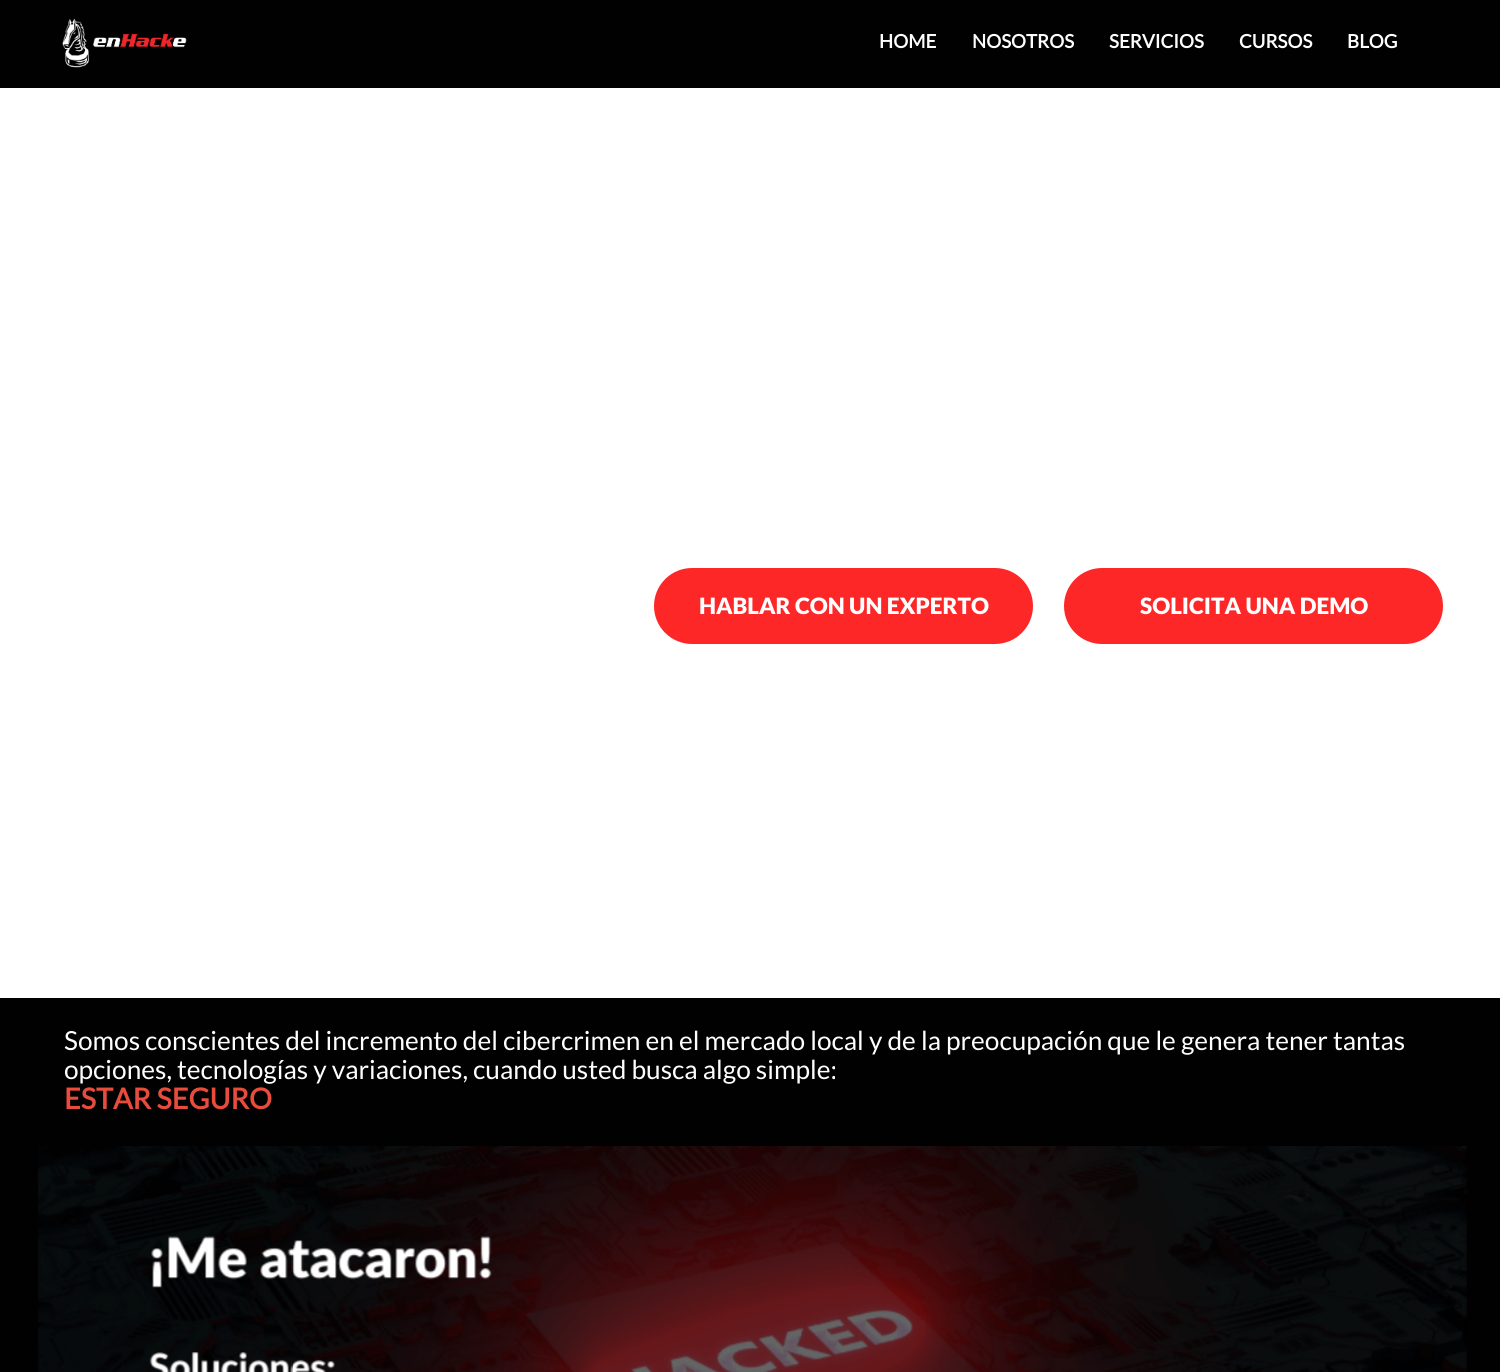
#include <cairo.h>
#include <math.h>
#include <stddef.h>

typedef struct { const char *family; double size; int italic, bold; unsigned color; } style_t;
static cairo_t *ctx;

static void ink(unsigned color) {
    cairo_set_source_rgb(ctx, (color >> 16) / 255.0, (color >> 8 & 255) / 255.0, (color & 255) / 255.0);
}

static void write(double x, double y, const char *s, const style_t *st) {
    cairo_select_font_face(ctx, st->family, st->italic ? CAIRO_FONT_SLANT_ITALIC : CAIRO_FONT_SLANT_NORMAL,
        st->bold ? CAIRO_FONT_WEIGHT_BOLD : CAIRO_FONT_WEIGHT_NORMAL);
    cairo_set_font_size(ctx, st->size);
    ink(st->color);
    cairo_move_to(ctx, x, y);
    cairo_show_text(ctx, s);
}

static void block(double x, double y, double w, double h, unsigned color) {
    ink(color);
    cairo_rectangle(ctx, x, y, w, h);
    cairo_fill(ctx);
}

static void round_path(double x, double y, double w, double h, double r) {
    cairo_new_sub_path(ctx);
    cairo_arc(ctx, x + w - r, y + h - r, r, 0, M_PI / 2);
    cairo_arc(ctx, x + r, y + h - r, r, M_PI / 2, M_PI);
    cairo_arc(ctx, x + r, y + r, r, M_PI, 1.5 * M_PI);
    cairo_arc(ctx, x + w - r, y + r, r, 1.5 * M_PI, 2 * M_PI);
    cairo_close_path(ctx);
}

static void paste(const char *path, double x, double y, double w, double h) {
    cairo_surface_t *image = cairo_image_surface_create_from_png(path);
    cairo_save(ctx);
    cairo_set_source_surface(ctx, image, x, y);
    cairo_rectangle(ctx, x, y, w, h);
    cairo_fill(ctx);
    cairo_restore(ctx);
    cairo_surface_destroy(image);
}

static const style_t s1 = {"Lato", 18.75, 0, 1, 0xfffefe};
static const style_t s2 = {"Lato Black", 22.5, 0, 0, 0xfffefe};
static const style_t s3 = {"Lato", 26.25, 0, 0, 0xfffefe};
static const style_t s4 = {"Lato", 28.75, 0, 1, 0xe74c3c};

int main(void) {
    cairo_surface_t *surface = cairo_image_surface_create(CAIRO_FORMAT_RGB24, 1500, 1372);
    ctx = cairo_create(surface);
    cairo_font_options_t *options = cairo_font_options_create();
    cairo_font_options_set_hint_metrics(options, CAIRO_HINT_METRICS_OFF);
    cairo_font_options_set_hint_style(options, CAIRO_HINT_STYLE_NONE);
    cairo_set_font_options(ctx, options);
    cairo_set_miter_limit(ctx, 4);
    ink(0xffffff);
    cairo_paint(ctx);
    block(0, 0, 1500, 88, 0x010101);
    paste("pic1.png", 62, 18, 125, 50);
    write(879, 48, "HOME", &s1);
    write(972, 48, "NOSOTROS", &s1);
    write(1109, 48, "SERVICIOS", &s1);
    write(1239, 48, "CURSOS", &s1);
    write(1347, 48, "BLOG", &s1);
    ink(0xfd2727);
    round_path(654, 568, 379, 76, 38);
    cairo_fill(ctx);
    write(699, 614, "HABLAR CON UN EXPERTO", &s2);
    ink(0xfd2727);
    round_path(1064, 568, 379, 76, 38);
    cairo_fill(ctx);
    write(1140, 614, "SOLICITA UNA DEMO", &s2);
    block(0, 998, 1500, 374, 0x010101);
    write(64, 1050, "Somos conscientes del incremento del cibercrimen en el mercado local y de la preocupación que le genera tener tantas", &s3);
    write(64, 1079, "opciones, tecnologías y variaciones, cuando usted busca algo simple:", &s3);
    write(64, 1109, "ESTAR SEGURO", &s4);
    paste("pic2.png", 38, 1146, 1429, 226);
    cairo_surface_write_to_png(surface, "screenshot.png");
    cairo_font_options_destroy(options);
    cairo_destroy(ctx);
    cairo_surface_destroy(surface);
    return 0;
}
